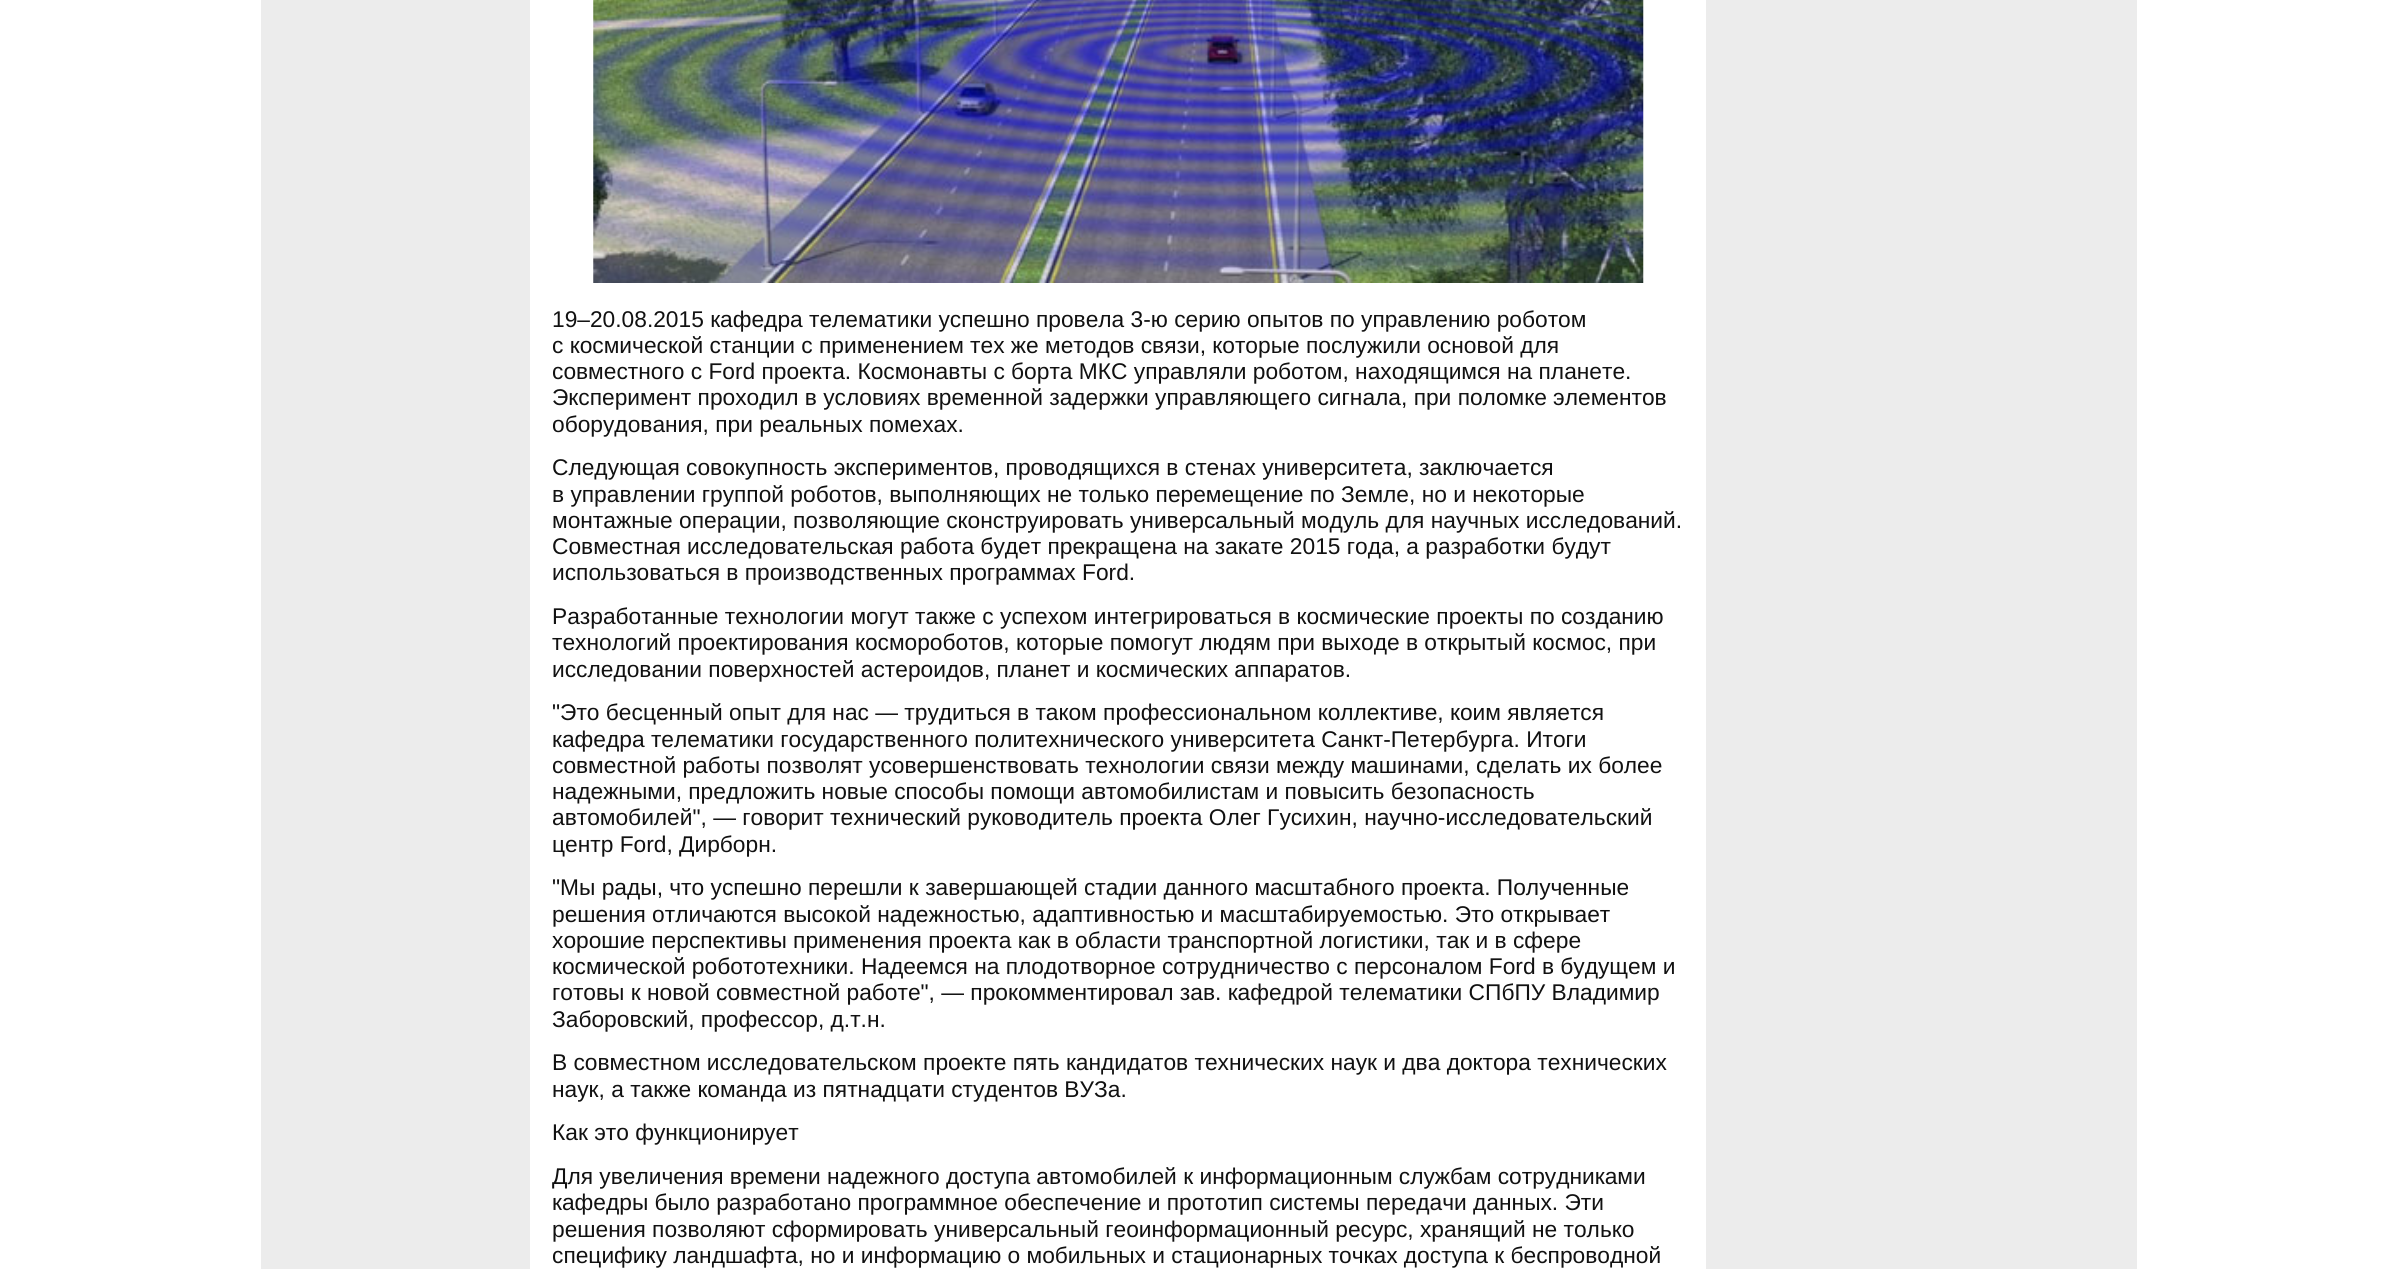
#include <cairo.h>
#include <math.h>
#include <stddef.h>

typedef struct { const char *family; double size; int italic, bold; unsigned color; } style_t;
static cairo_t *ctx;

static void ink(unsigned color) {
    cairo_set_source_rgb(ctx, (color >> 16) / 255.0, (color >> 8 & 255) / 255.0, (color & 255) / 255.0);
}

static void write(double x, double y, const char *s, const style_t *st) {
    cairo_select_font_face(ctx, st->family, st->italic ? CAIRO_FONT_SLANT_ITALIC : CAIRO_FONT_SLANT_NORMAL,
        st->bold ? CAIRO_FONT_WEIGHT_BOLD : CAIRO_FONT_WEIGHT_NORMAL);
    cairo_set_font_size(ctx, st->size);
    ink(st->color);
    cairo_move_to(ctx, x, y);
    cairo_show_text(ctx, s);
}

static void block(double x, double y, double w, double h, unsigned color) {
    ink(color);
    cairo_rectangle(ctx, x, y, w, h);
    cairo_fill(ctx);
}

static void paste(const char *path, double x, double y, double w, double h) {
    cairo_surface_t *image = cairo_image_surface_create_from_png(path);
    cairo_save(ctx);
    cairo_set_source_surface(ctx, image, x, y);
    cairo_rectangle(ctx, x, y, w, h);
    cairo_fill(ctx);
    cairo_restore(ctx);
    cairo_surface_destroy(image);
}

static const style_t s1 = {"Liberation Sans", 22.75, 0, 0, 0x111111};

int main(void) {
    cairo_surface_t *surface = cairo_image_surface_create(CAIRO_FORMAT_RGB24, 2395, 1269);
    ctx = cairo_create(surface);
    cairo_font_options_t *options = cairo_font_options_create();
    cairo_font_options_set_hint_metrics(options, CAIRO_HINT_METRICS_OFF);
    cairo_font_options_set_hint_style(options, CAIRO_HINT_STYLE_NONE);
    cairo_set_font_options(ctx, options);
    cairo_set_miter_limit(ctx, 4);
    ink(0xffffff);
    cairo_paint(ctx);
    block(261, 0, 269, 1269, 0xececec);
    paste("pic1.png", 593, 0, 1051, 283);
    write(552, 327, "19–20.08.2015 кафедра телематики успешно провела 3-ю серию опытов по управлению роботом", &s1);
    write(552, 353, "с космической станции с применением тех же методов связи, которые послужили основой для", &s1);
    write(552, 379, "совместного с Ford проекта. Космонавты с борта МКС управляли роботом, находящимся на планете.", &s1);
    write(552, 405, "Эксперимент проходил в условиях временной задержки управляющего сигнала, при поломке элементов", &s1);
    write(552, 432, "оборудования, при реальных помехах.", &s1);
    write(552, 475, "Следующая совокупность экспериментов, проводящихся в стенах университета, заключается", &s1);
    write(552, 502, "в управлении группой роботов, выполняющих не только перемещение по Земле, но и некоторые", &s1);
    write(552, 528, "монтажные операции, позволяющие сконструировать универсальный модуль для научных исследований.", &s1);
    write(552, 554, "Совместная исследовательская работа будет прекращена на закате 2015 года, а разработки будут", &s1);
    write(552, 580, "использоваться в производственных программах Ford.", &s1);
    write(552, 624, "Разработанные технологии могут также с успехом интегрироваться в космические проекты по созданию", &s1);
    write(552, 650, "технологий проектирования космороботов, которые помогут людям при выходе в открытый космос, при", &s1);
    write(552, 677, "исследовании поверхностей астероидов, планет и космических аппаратов.", &s1);
    write(552, 720, "\"Это бесценный опыт для нас — трудиться в таком профессиональном коллективе, коим является", &s1);
    write(552, 747, "кафедра телематики государственного политехнического университета Санкт-Петербурга. Итоги", &s1);
    write(552, 773, "совместной работы позволят усовершенствовать технологии связи между машинами, сделать их более", &s1);
    write(552, 799, "надежными, предложить новые способы помощи автомобилистам и повысить безопасность", &s1);
    write(552, 825, "автомобилей\", — говорит технический руководитель проекта Олег Гусихин, научно-исследовательский", &s1);
    write(552, 852, "центр Ford, Дирборн.", &s1);
    write(552, 895, "\"Мы рады, что успешно перешли к завершающей стадии данного масштабного проекта. Полученные", &s1);
    write(552, 922, "решения отличаются высокой надежностью, адаптивностью и масштабируемостью. Это открывает", &s1);
    write(552, 948, "хорошие перспективы применения проекта как в области транспортной логистики, так и в сфере", &s1);
    write(552, 974, "космической робототехники. Надеемся на плодотворное сотрудничество с персоналом Ford в будущем и", &s1);
    write(552, 1000, "готовы к новой совместной работе\", — прокомментировал зав. кафедрой телематики СПбПУ Владимир", &s1);
    write(552, 1027, "Заборовский, профессор, д.т.н.", &s1);
    write(552, 1070, "В совместном исследовательском проекте пять кандидатов технических наук и два доктора технических", &s1);
    write(552, 1097, "наук, а также команда из пятнадцати студентов ВУЗа.", &s1);
    write(552, 1140, "Как это функционирует", &s1);
    write(552, 1184, "Для увеличения времени надежного доступа автомобилей к информационным службам сотрудниками", &s1);
    write(552, 1210, "кафедры было разработано программное обеспечение и прототип системы передачи данных. Эти", &s1);
    write(552, 1237, "решения позволяют сформировать универсальный геоинформационный ресурс, хранящий не только", &s1);
    write(552, 1263, "специфику ландшафта, но и информацию о мобильных и стационарных точках доступа к беспроводной", &s1);
    block(1706, 0, 431, 1269, 0xececec);
    cairo_surface_write_to_png(surface, "screenshot.png");
    cairo_font_options_destroy(options);
    cairo_destroy(ctx);
    cairo_surface_destroy(surface);
    return 0;
}
